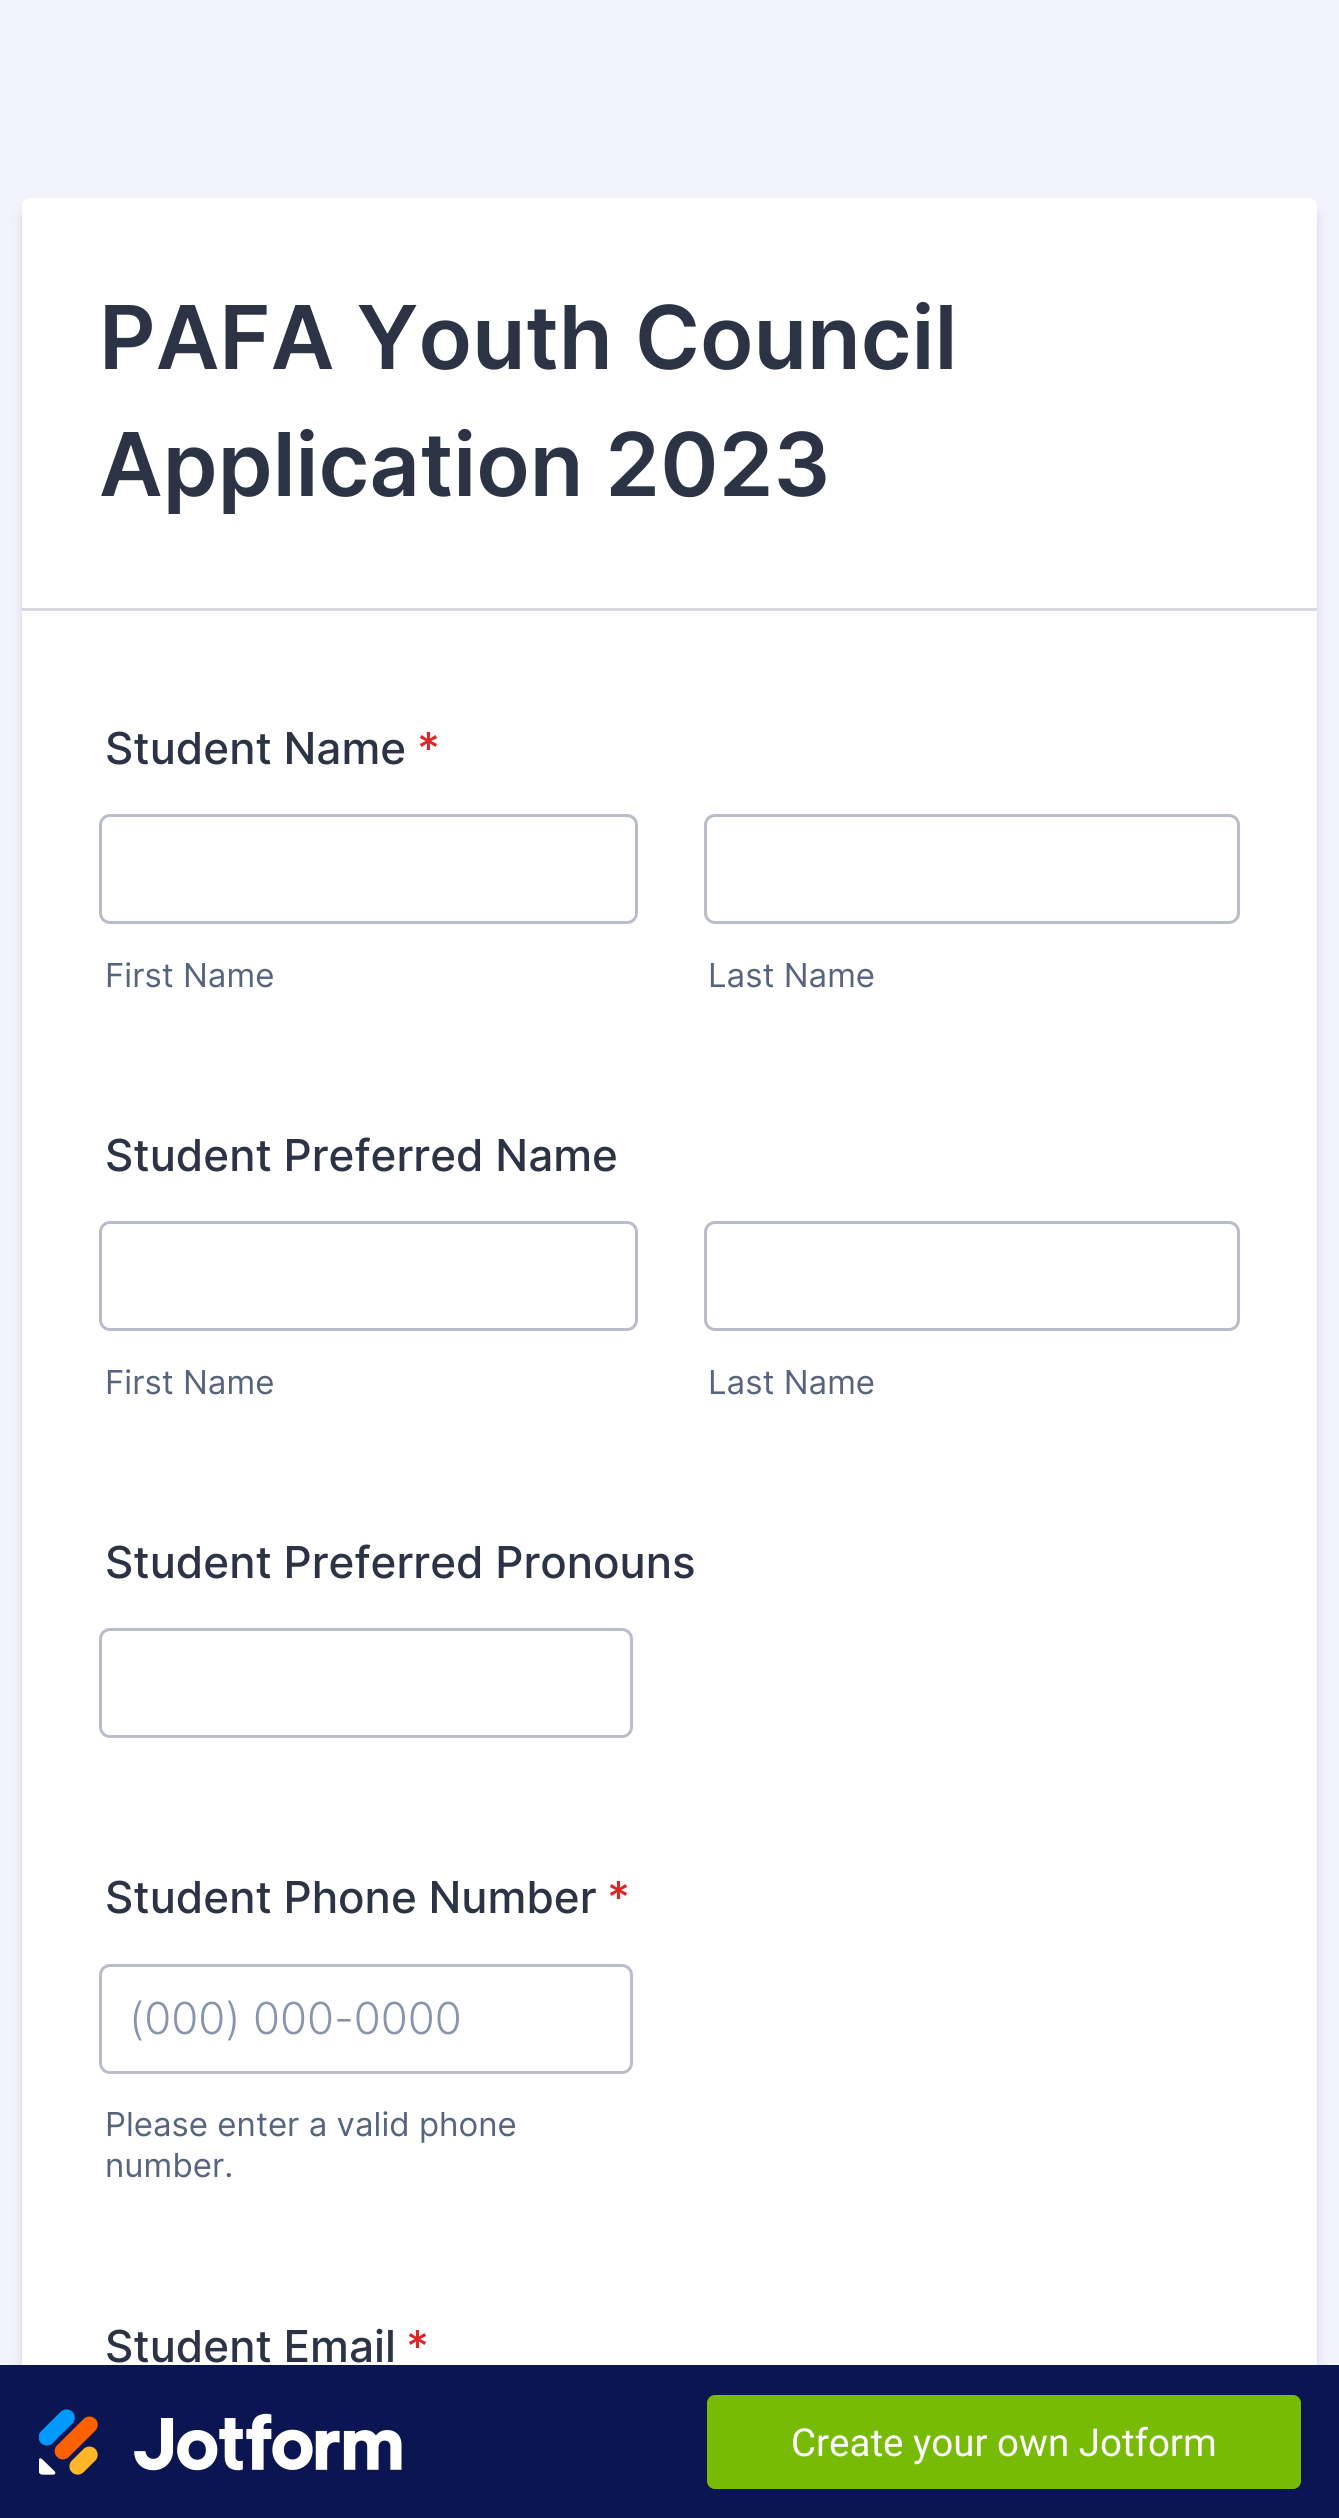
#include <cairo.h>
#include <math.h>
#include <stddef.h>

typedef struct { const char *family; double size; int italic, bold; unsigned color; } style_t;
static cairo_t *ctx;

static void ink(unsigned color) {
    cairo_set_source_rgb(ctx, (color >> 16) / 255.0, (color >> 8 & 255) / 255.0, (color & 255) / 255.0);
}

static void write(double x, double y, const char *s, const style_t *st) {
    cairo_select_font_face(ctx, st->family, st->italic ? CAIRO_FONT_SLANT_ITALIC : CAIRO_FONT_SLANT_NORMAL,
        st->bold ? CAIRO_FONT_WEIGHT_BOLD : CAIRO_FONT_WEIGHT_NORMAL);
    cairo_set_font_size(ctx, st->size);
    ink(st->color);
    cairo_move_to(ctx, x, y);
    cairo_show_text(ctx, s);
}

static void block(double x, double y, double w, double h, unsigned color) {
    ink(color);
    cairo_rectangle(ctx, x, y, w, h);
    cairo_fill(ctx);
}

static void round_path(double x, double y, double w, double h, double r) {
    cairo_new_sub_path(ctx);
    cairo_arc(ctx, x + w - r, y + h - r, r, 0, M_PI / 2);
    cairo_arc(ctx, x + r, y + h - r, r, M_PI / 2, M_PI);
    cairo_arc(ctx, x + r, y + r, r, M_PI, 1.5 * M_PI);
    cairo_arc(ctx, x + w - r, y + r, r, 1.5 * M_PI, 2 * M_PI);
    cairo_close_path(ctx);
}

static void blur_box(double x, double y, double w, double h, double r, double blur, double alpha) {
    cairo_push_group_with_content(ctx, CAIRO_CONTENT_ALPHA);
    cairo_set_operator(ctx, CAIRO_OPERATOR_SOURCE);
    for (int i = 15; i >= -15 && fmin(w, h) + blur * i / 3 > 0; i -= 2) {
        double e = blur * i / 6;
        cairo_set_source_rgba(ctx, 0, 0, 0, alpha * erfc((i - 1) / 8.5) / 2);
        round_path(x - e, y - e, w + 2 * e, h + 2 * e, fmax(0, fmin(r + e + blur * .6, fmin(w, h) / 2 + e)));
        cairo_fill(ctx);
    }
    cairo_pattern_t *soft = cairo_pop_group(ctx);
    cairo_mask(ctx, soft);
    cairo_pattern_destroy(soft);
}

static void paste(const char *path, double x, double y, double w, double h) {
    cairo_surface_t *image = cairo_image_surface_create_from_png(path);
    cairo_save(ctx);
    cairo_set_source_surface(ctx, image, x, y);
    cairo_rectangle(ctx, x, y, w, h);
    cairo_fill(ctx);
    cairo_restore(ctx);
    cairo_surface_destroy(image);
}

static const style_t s1 = {"Inter SemiBold", 88, 0, 0, 0x2c3345};
static const style_t s2 = {"Inter Medium", 44, 0, 0, 0x2c3345};
static const style_t s3 = {"Inter Medium", 44, 0, 0, 0xdc2626};
static const style_t s4 = {"Inter", 33, 0, 0, 0x57647e};
static const style_t s5 = {"Inter Light", 44, 0, 0, 0x8894ab};
static const style_t s6 = {"Roboto", 38.5, 0, 0, 0xffffff};

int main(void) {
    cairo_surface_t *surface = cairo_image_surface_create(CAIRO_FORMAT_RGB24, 1339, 2518);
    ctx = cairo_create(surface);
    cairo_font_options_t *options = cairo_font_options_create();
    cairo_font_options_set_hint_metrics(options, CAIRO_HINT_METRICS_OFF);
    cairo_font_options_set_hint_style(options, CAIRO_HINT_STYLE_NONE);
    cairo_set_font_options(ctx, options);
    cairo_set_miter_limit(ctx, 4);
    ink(0xf3f3fe);
    cairo_paint(ctx);
    ink(0x57647e);
    blur_box(22, 209, 1295, 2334, 8, 5.5, 0.21);
    ink(0xffffff);
    round_path(22, 198, 1295, 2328, 8);
    cairo_fill(ctx);
    block(22, 608, 1295, 3, 0xd7d8e1);
    write(99, 369, "PAFA Youth Council", &s1);
    write(99, 496, "Application 2023", &s1);
    write(105, 764, "Student Name", &s2);
    write(417, 764, "*", &s3);
    round_path(100.5, 815.5, 536, 107, 9.5);
    ink(0xb8bdc9);
    cairo_set_line_width(ctx, 3);
    cairo_stroke(ctx);
    write(105, 987, "First Name", &s4);
    round_path(705.5, 815.5, 533, 107, 9.5);
    ink(0xb8bdc9);
    cairo_stroke(ctx);
    write(708, 987, "Last Name", &s4);
    write(105, 1171, "Student Preferred Name", &s2);
    round_path(100.5, 1222.5, 536, 107, 9.5);
    ink(0xb8bdc9);
    cairo_stroke(ctx);
    write(105, 1394, "First Name", &s4);
    round_path(705.5, 1222.5, 533, 107, 9.5);
    ink(0xb8bdc9);
    cairo_stroke(ctx);
    write(708, 1394, "Last Name", &s4);
    write(105, 1578, "Student Preferred Pronouns", &s2);
    round_path(100.5, 1629.5, 531, 107, 9.5);
    ink(0xb8bdc9);
    cairo_stroke(ctx);
    write(105, 1913, "Student Phone Number", &s2);
    write(607, 1913, "*", &s3);
    round_path(100.5, 1965.5, 531, 107, 9.5);
    ink(0xb8bdc9);
    cairo_stroke(ctx);
    write(129, 2034, "(000) 000-0000", &s5);
    write(105, 2136, "Please enter a valid phone", &s4);
    write(105, 2177, "number.", &s4);
    write(105, 2362, "Student Email", &s2);
    write(406, 2362, "*", &s3);
    block(0, 2365, 1339, 153, 0x0a1551);
    paste("pic1.png", 39, 2409, 363, 66);
    ink(0x78bb07);
    round_path(707, 2395, 594, 94, 8);
    cairo_fill(ctx);
    write(791, 2456, "Create your own Jotform", &s6);
    cairo_surface_write_to_png(surface, "screenshot.png");
    cairo_font_options_destroy(options);
    cairo_destroy(ctx);
    cairo_surface_destroy(surface);
    return 0;
}
